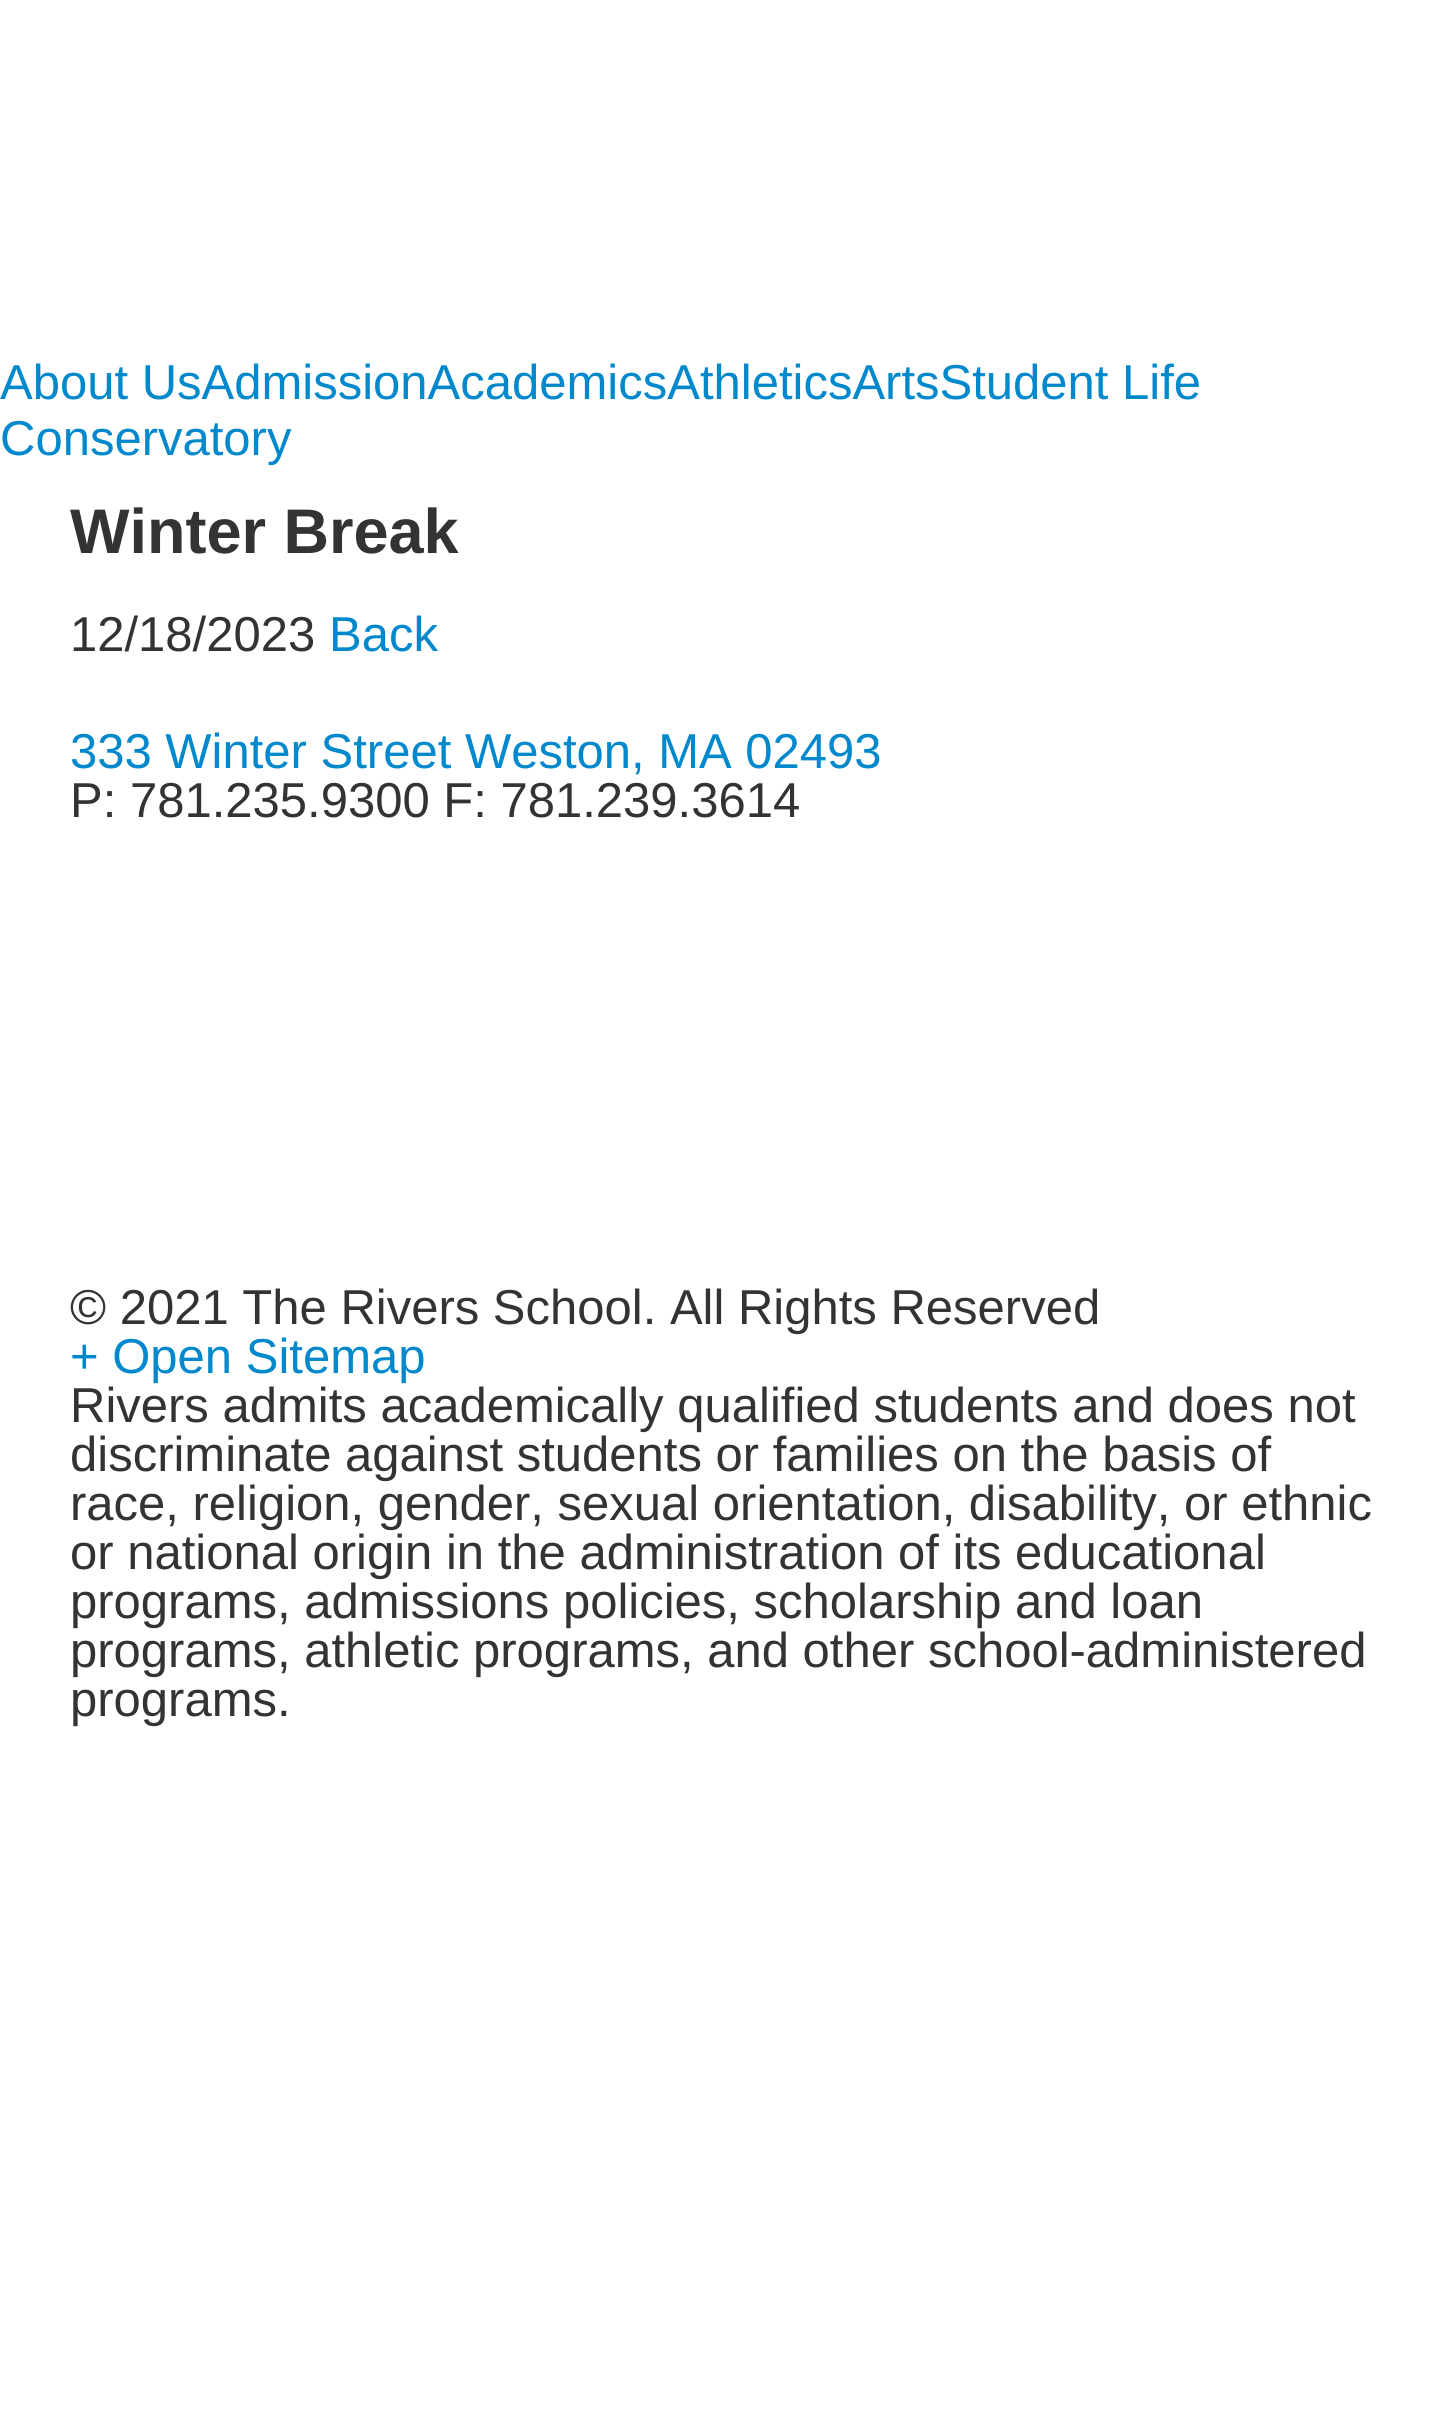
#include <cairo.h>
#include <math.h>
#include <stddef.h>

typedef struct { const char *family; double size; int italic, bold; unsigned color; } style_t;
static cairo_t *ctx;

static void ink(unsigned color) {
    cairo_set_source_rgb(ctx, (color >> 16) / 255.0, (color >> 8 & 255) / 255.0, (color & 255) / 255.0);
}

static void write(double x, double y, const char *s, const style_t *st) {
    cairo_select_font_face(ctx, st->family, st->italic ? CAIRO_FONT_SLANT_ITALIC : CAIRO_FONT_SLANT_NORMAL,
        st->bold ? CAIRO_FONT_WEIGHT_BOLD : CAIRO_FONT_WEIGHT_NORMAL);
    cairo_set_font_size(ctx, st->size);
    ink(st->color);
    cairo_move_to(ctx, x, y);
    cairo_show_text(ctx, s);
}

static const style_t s1 = {"Liberation Sans", 49, 0, 0, 0x0088cc};
static const style_t s2 = {"Liberation Sans", 63, 0, 1, 0x333333};
static const style_t s3 = {"Liberation Sans", 49, 0, 0, 0x333333};

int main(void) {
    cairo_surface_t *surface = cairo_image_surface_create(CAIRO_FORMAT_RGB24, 1454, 2420);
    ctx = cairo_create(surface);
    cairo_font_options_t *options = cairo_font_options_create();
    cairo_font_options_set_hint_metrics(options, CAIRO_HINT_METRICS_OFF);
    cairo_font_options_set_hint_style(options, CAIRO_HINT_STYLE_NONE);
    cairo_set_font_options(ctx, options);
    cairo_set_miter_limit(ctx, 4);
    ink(0xffffff);
    cairo_paint(ctx);
    write(0, 399, "About UsAdmissionAcademicsAthleticsArtsStudent Life", &s1);
    write(0, 455, "Conservatory", &s1);
    write(70, 553, "Winter Break", &s2);
    write(70, 651, "12/18/2023", &s3);
    write(329, 651, "Back", &s1);
    write(70, 768, "333 Winter Street Weston, MA 02493", &s1);
    write(70, 817, "P: 781.235.9300 F: 781.239.3614", &s3);
    write(70, 1324, "© 2021 The Rivers School. All Rights Reserved", &s3);
    write(70, 1373, "+ Open Sitemap", &s1);
    write(70, 1422, "Rivers admits academically qualified students and does not", &s3);
    write(70, 1471, "discriminate against students or families on the basis of", &s3);
    write(70, 1520, "race, religion, gender, sexual orientation, disability, or ethnic", &s3);
    write(70, 1569, "or national origin in the administration of its educational", &s3);
    write(70, 1618, "programs, admissions policies, scholarship and loan", &s3);
    write(70, 1667, "programs, athletic programs, and other school-administered", &s3);
    write(70, 1716, "programs.", &s3);
    cairo_surface_write_to_png(surface, "screenshot.png");
    cairo_font_options_destroy(options);
    cairo_destroy(ctx);
    cairo_surface_destroy(surface);
    return 0;
}
